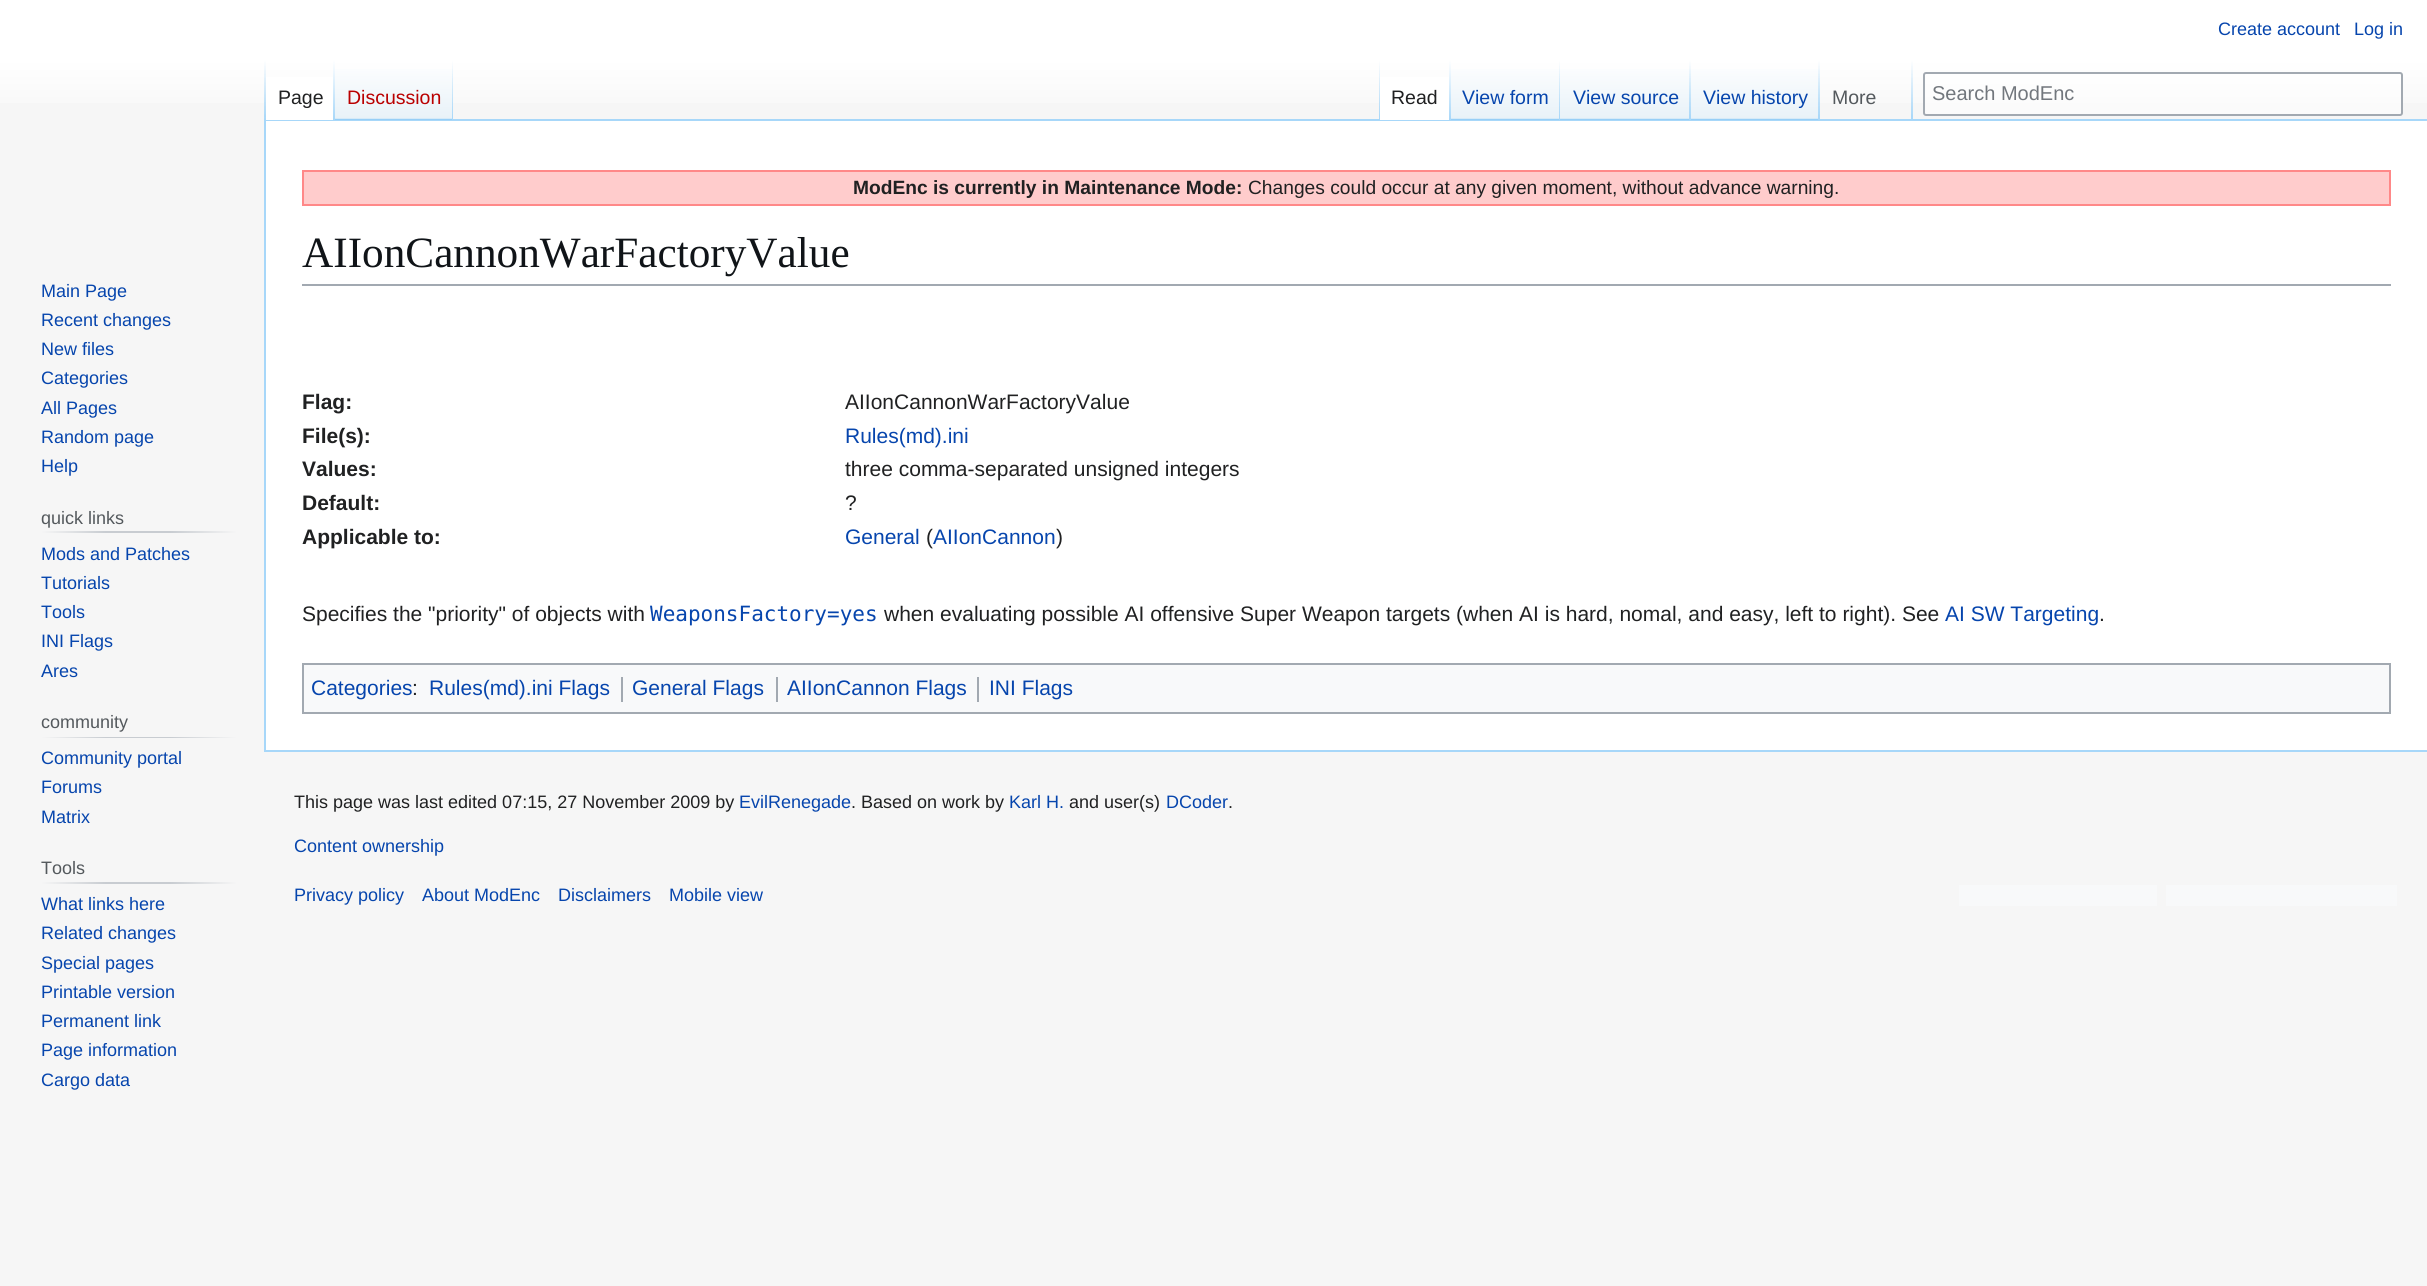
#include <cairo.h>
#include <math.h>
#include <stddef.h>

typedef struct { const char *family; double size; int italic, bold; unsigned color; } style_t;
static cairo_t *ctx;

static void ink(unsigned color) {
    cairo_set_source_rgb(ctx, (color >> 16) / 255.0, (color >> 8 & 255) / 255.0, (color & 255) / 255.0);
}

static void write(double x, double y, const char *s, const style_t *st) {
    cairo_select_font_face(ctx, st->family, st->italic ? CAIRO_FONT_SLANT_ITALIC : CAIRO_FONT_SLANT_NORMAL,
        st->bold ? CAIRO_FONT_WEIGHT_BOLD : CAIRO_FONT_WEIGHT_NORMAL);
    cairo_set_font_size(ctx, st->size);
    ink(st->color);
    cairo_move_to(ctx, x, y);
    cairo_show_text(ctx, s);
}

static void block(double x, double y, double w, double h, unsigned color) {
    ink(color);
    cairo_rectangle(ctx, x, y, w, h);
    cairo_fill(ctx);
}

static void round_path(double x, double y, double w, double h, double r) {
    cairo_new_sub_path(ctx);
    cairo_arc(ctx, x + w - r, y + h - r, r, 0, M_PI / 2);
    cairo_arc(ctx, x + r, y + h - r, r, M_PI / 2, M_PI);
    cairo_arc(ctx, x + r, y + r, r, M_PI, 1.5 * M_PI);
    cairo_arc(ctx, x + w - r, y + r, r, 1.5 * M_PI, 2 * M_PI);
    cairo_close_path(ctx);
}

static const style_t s1 = {"Liberation Sans", 18, 0, 0, 0x0645ad};
static const style_t s2 = {"Liberation Sans", 19.5, 0, 0, 0x202122};
static const style_t s3 = {"Liberation Sans", 19.5, 0, 0, 0xba0000};
static const style_t s4 = {"Liberation Sans", 19.5, 0, 0, 0x0645ad};
static const style_t s5 = {"Liberation Sans", 19.5, 0, 0, 0x54595d};
static const style_t s6 = {"Liberation Sans", 20, 0, 0, 0x72777d};
static const style_t s7 = {"Liberation Sans", 18, 0, 0, 0x54595d};
static const style_t s8 = {"Liberation Sans", 19.2, 0, 1, 0x202122};
static const style_t s9 = {"Liberation Sans", 19.2, 0, 0, 0x202122};
static const style_t s10 = {"Liberation Serif", 43.25, 0, 0, 0x101418};
static const style_t s11 = {"Liberation Sans", 21, 0, 1, 0x202122};
static const style_t s12 = {"Liberation Sans", 21, 0, 0, 0x202122};
static const style_t s13 = {"Liberation Sans", 21, 0, 0, 0x0645ad};
static const style_t s14 = {"DejaVu Sans Mono", 21, 0, 0, 0x0645ad};
static const style_t s15 = {"Liberation Sans", 18, 0, 0, 0x202122};

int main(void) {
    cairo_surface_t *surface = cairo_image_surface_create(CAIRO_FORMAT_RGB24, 2427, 1286);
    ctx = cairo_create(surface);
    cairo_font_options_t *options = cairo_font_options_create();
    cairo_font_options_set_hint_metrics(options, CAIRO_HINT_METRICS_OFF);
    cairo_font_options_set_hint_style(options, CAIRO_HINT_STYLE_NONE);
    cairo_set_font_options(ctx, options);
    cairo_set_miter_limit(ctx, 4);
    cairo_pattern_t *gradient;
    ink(0xf6f6f6);
    cairo_paint(ctx);
    gradient = cairo_pattern_create_linear(1214, 0, 1214, 120);
    cairo_pattern_add_color_stop_rgba(gradient, 0.5, 1, 1, 1, 1);
    cairo_pattern_add_color_stop_rgba(gradient, 1, 0.965, 0.965, 0.965, 1);
    cairo_set_source(ctx, gradient);
    cairo_pattern_destroy(gradient);
    cairo_rectangle(ctx, 0, 0, 2427, 103);
    cairo_fill(ctx);
    write(2218, 35, "Create account", &s1);
    write(2354, 35, "Log in", &s1);
    block(264, 119, 2163, 2, 0xa7d7f9);
    block(264, 750, 2163, 2, 0xa7d7f9);
    block(264, 119, 2, 633, 0xa7d7f9);
    gradient = cairo_pattern_create_linear(265, 60, 265, 120);
    cairo_pattern_add_color_stop_rgba(gradient, 0, 0.655, 0.843, 0.976, 0);
    cairo_pattern_add_color_stop_rgba(gradient, 1, 0.655, 0.843, 0.976, 1);
    cairo_set_source(ctx, gradient);
    cairo_pattern_destroy(gradient);
    cairo_rectangle(ctx, 264, 60, 2, 60);
    cairo_fill(ctx);
    block(266, 77, 67, 43, 0xffffff);
    gradient = cairo_pattern_create_linear(334, 60, 334, 120);
    cairo_pattern_add_color_stop_rgba(gradient, 0, 1, 1, 1, 1);
    cairo_pattern_add_color_stop_rgba(gradient, 1, 0.655, 0.843, 0.976, 1);
    cairo_set_source(ctx, gradient);
    cairo_pattern_destroy(gradient);
    cairo_rectangle(ctx, 333, 60, 2, 60);
    cairo_fill(ctx);
    write(278, 104, "Page", &s2);
    gradient = cairo_pattern_create_linear(394, 120, 394, 60);
    cairo_pattern_add_color_stop_rgba(gradient, 0, 0.467, 0.757, 0.965, 1);
    cairo_pattern_add_color_stop_rgba(gradient, 0.03, 0.91, 0.949, 0.973, 1);
    cairo_pattern_add_color_stop_rgba(gradient, 1, 1, 1, 1, 1);
    cairo_set_source(ctx, gradient);
    cairo_pattern_destroy(gradient);
    cairo_rectangle(ctx, 335, 69, 118, 51);
    cairo_fill(ctx);
    gradient = cairo_pattern_create_linear(452, 60, 452, 120);
    cairo_pattern_add_color_stop_rgba(gradient, 0, 0.655, 0.843, 0.976, 0);
    cairo_pattern_add_color_stop_rgba(gradient, 1, 0.655, 0.843, 0.976, 1);
    cairo_set_source(ctx, gradient);
    cairo_pattern_destroy(gradient);
    cairo_rectangle(ctx, 452, 60, 1, 60);
    cairo_fill(ctx);
    write(347, 104, "Discussion", &s3);
    gradient = cairo_pattern_create_linear(1379, 60, 1379, 120);
    cairo_pattern_add_color_stop_rgba(gradient, 0, 0.655, 0.843, 0.976, 0);
    cairo_pattern_add_color_stop_rgba(gradient, 1, 0.655, 0.843, 0.976, 1);
    cairo_set_source(ctx, gradient);
    cairo_pattern_destroy(gradient);
    cairo_rectangle(ctx, 1379, 60, 1, 60);
    cairo_fill(ctx);
    block(1380, 77, 69, 43, 0xffffff);
    gradient = cairo_pattern_create_linear(1450, 60, 1450, 120);
    cairo_pattern_add_color_stop_rgba(gradient, 0, 1, 1, 1, 1);
    cairo_pattern_add_color_stop_rgba(gradient, 1, 0.655, 0.843, 0.976, 1);
    cairo_set_source(ctx, gradient);
    cairo_pattern_destroy(gradient);
    cairo_rectangle(ctx, 1449, 60, 2, 60);
    cairo_fill(ctx);
    write(1391, 104, "Read", &s2);
    gradient = cairo_pattern_create_linear(1505, 120, 1505, 60);
    cairo_pattern_add_color_stop_rgba(gradient, 0, 0.467, 0.757, 0.965, 1);
    cairo_pattern_add_color_stop_rgba(gradient, 0.03, 0.91, 0.949, 0.973, 1);
    cairo_pattern_add_color_stop_rgba(gradient, 1, 1, 1, 1, 1);
    cairo_set_source(ctx, gradient);
    cairo_pattern_destroy(gradient);
    cairo_rectangle(ctx, 1451, 69, 109, 51);
    cairo_fill(ctx);
    gradient = cairo_pattern_create_linear(1559, 60, 1559, 120);
    cairo_pattern_add_color_stop_rgba(gradient, 0, 0.655, 0.843, 0.976, 0);
    cairo_pattern_add_color_stop_rgba(gradient, 1, 0.655, 0.843, 0.976, 1);
    cairo_set_source(ctx, gradient);
    cairo_pattern_destroy(gradient);
    cairo_rectangle(ctx, 1559, 60, 1, 60);
    cairo_fill(ctx);
    write(1462, 104, "View form", &s4);
    gradient = cairo_pattern_create_linear(1625, 120, 1625, 60);
    cairo_pattern_add_color_stop_rgba(gradient, 0, 0.467, 0.757, 0.965, 1);
    cairo_pattern_add_color_stop_rgba(gradient, 0.03, 0.91, 0.949, 0.973, 1);
    cairo_pattern_add_color_stop_rgba(gradient, 1, 1, 1, 1, 1);
    cairo_set_source(ctx, gradient);
    cairo_pattern_destroy(gradient);
    cairo_rectangle(ctx, 1560, 69, 131, 51);
    cairo_fill(ctx);
    gradient = cairo_pattern_create_linear(1690, 60, 1690, 120);
    cairo_pattern_add_color_stop_rgba(gradient, 0, 0.655, 0.843, 0.976, 0);
    cairo_pattern_add_color_stop_rgba(gradient, 1, 0.655, 0.843, 0.976, 1);
    cairo_set_source(ctx, gradient);
    cairo_pattern_destroy(gradient);
    cairo_rectangle(ctx, 1689, 60, 2, 60);
    cairo_fill(ctx);
    write(1573, 104, "View source", &s4);
    gradient = cairo_pattern_create_linear(1755, 120, 1755, 60);
    cairo_pattern_add_color_stop_rgba(gradient, 0, 0.467, 0.757, 0.965, 1);
    cairo_pattern_add_color_stop_rgba(gradient, 0.03, 0.91, 0.949, 0.973, 1);
    cairo_pattern_add_color_stop_rgba(gradient, 1, 1, 1, 1, 1);
    cairo_set_source(ctx, gradient);
    cairo_pattern_destroy(gradient);
    cairo_rectangle(ctx, 1691, 69, 129, 51);
    cairo_fill(ctx);
    gradient = cairo_pattern_create_linear(1819, 60, 1819, 120);
    cairo_pattern_add_color_stop_rgba(gradient, 0, 0.655, 0.843, 0.976, 0);
    cairo_pattern_add_color_stop_rgba(gradient, 1, 0.655, 0.843, 0.976, 1);
    cairo_set_source(ctx, gradient);
    cairo_pattern_destroy(gradient);
    cairo_rectangle(ctx, 1818, 60, 2, 60);
    cairo_fill(ctx);
    write(1703, 104, "View history", &s4);
    gradient = cairo_pattern_create_linear(1912, 60, 1912, 120);
    cairo_pattern_add_color_stop_rgba(gradient, 0, 0.655, 0.843, 0.976, 0);
    cairo_pattern_add_color_stop_rgba(gradient, 1, 0.655, 0.843, 0.976, 1);
    cairo_set_source(ctx, gradient);
    cairo_pattern_destroy(gradient);
    cairo_rectangle(ctx, 1911, 60, 2, 60);
    cairo_fill(ctx);
    write(1832, 104, "More", &s5);
    cairo_set_source_rgba(ctx, 1, 1, 1, 0.5);
    round_path(1924, 73, 478, 42, 2);
    cairo_fill_preserve(ctx);
    ink(0xa2a9b1);
    cairo_stroke(ctx);
    write(1932, 100, "Search ModEnc", &s6);
    write(41, 297, "Main Page", &s1);
    write(41, 326, "Recent changes", &s1);
    write(41, 355, "New files", &s1);
    write(41, 384, "Categories", &s1);
    write(41, 414, "All Pages", &s1);
    write(41, 443, "Random page", &s1);
    write(41, 472, "Help", &s1);
    gradient = cairo_pattern_create_linear(41, 532, 237, 532);
    cairo_pattern_add_color_stop_rgba(gradient, 0, 0.965, 0.965, 0.965, 1);
    cairo_pattern_add_color_stop_rgba(gradient, 0.33, 0.784, 0.8, 0.82, 1);
    cairo_pattern_add_color_stop_rgba(gradient, 0.66, 0.784, 0.8, 0.82, 1);
    cairo_pattern_add_color_stop_rgba(gradient, 1, 0.965, 0.965, 0.965, 1);
    cairo_set_source(ctx, gradient);
    cairo_pattern_destroy(gradient);
    cairo_rectangle(ctx, 41, 531, 196, 2);
    cairo_fill(ctx);
    write(41, 524, "quick links", &s7);
    write(41, 560, "Mods and Patches", &s1);
    write(41, 589, "Tutorials", &s1);
    write(41, 618, "Tools", &s1);
    write(41, 647, "INI Flags", &s1);
    write(41, 677, "Ares", &s1);
    gradient = cairo_pattern_create_linear(41, 737, 237, 737);
    cairo_pattern_add_color_stop_rgba(gradient, 0, 0.965, 0.965, 0.965, 1);
    cairo_pattern_add_color_stop_rgba(gradient, 0.33, 0.784, 0.8, 0.82, 1);
    cairo_pattern_add_color_stop_rgba(gradient, 0.66, 0.784, 0.8, 0.82, 1);
    cairo_pattern_add_color_stop_rgba(gradient, 1, 0.965, 0.965, 0.965, 1);
    cairo_set_source(ctx, gradient);
    cairo_pattern_destroy(gradient);
    cairo_rectangle(ctx, 41, 737, 196, 1);
    cairo_fill(ctx);
    write(41, 728, "community", &s7);
    write(41, 764, "Community portal", &s1);
    write(41, 793, "Forums", &s1);
    write(41, 823, "Matrix", &s1);
    gradient = cairo_pattern_create_linear(41, 883, 237, 883);
    cairo_pattern_add_color_stop_rgba(gradient, 0, 0.965, 0.965, 0.965, 1);
    cairo_pattern_add_color_stop_rgba(gradient, 0.33, 0.784, 0.8, 0.82, 1);
    cairo_pattern_add_color_stop_rgba(gradient, 0.66, 0.784, 0.8, 0.82, 1);
    cairo_pattern_add_color_stop_rgba(gradient, 1, 0.965, 0.965, 0.965, 1);
    cairo_set_source(ctx, gradient);
    cairo_pattern_destroy(gradient);
    cairo_rectangle(ctx, 41, 882, 196, 2);
    cairo_fill(ctx);
    write(41, 874, "Tools", &s7);
    write(41, 910, "What links here", &s1);
    write(41, 939, "Related changes", &s1);
    write(41, 969, "Special pages", &s1);
    write(41, 998, "Printable version", &s1);
    write(41, 1027, "Permanent link", &s1);
    write(41, 1056, "Page information", &s1);
    write(41, 1086, "Cargo data", &s1);
    block(266, 121, 2161, 629, 0xffffff);
    ink(0xffcccc);
    cairo_rectangle(ctx, 303, 171, 2087, 34);
    cairo_fill_preserve(ctx);
    ink(0xff8888);
    cairo_stroke(ctx);
    write(853, 194, "ModEnc is currently in Maintenance Mode:", &s8);
    write(1248, 194, "Changes could occur at any given moment, without advance warning.", &s9);
    block(302, 284, 2089, 2, 0xa2a9b1);
    write(302, 267, "AIIonCannonWarFactoryValue", &s10);
    write(302, 409, "Flag:", &s11);
    write(845, 409, "AIIonCannonWarFactoryValue", &s12);
    write(302, 443, "File(s):", &s11);
    write(845, 443, "Rules(md).ini", &s13);
    write(302, 476, "Values:", &s11);
    write(845, 476, "three comma-separated unsigned integers", &s12);
    write(302, 510, "Default:", &s11);
    write(845, 510, "?", &s12);
    write(302, 544, "Applicable to:", &s11);
    write(845, 544, "General", &s13);
    write(926, 544, "(", &s12);
    write(933, 544, "AIIonCannon", &s13);
    write(1056, 544, ")", &s12);
    write(302, 621, "Specifies the \"priority\" of objects with", &s12);
    write(650, 621, "WeaponsFactory=yes", &s14);
    write(884, 621, "when evaluating possible AI offensive Super Weapon targets (when AI is hard, nomal, and easy, left to right). See", &s12);
    write(1945, 621, "AI SW Targeting", &s13);
    write(2099, 621, ".", &s12);
    ink(0xf8f9fa);
    cairo_rectangle(ctx, 303, 664, 2087, 49);
    cairo_fill_preserve(ctx);
    ink(0xa2a9b1);
    cairo_stroke(ctx);
    write(311, 695, "Categories", &s13);
    write(412, 695, ":", &s12);
    write(429, 695, "Rules(md).ini Flags", &s13);
    block(621, 677, 2, 25, 0xa2a9b1);
    write(632, 695, "General Flags", &s13);
    block(776, 677, 2, 25, 0xa2a9b1);
    write(787, 695, "AIIonCannon Flags", &s13);
    block(977, 677, 2, 25, 0xa2a9b1);
    write(989, 695, "INI Flags", &s13);
    write(294, 808, "This page was last edited 07:15, 27 November 2009 by", &s15);
    write(739, 808, "EvilRenegade", &s1);
    write(851, 808, ". Based on work by", &s15);
    write(1009, 808, "Karl H.", &s1);
    write(1069, 808, "and user(s)", &s15);
    write(1166, 808, "DCoder", &s1);
    write(1228, 808, ".", &s15);
    write(294, 852, "Content ownership", &s1);
    write(294, 901, "Privacy policy", &s1);
    write(422, 901, "About ModEnc", &s1);
    write(558, 901, "Disclaimers", &s1);
    write(669, 901, "Mobile view", &s1);
    block(1959, 885, 198, 21, 0xf8f9fa);
    block(2166, 885, 231, 21, 0xf8f9fa);
    cairo_surface_write_to_png(surface, "screenshot.png");
    cairo_font_options_destroy(options);
    cairo_destroy(ctx);
    cairo_surface_destroy(surface);
    return 0;
}
